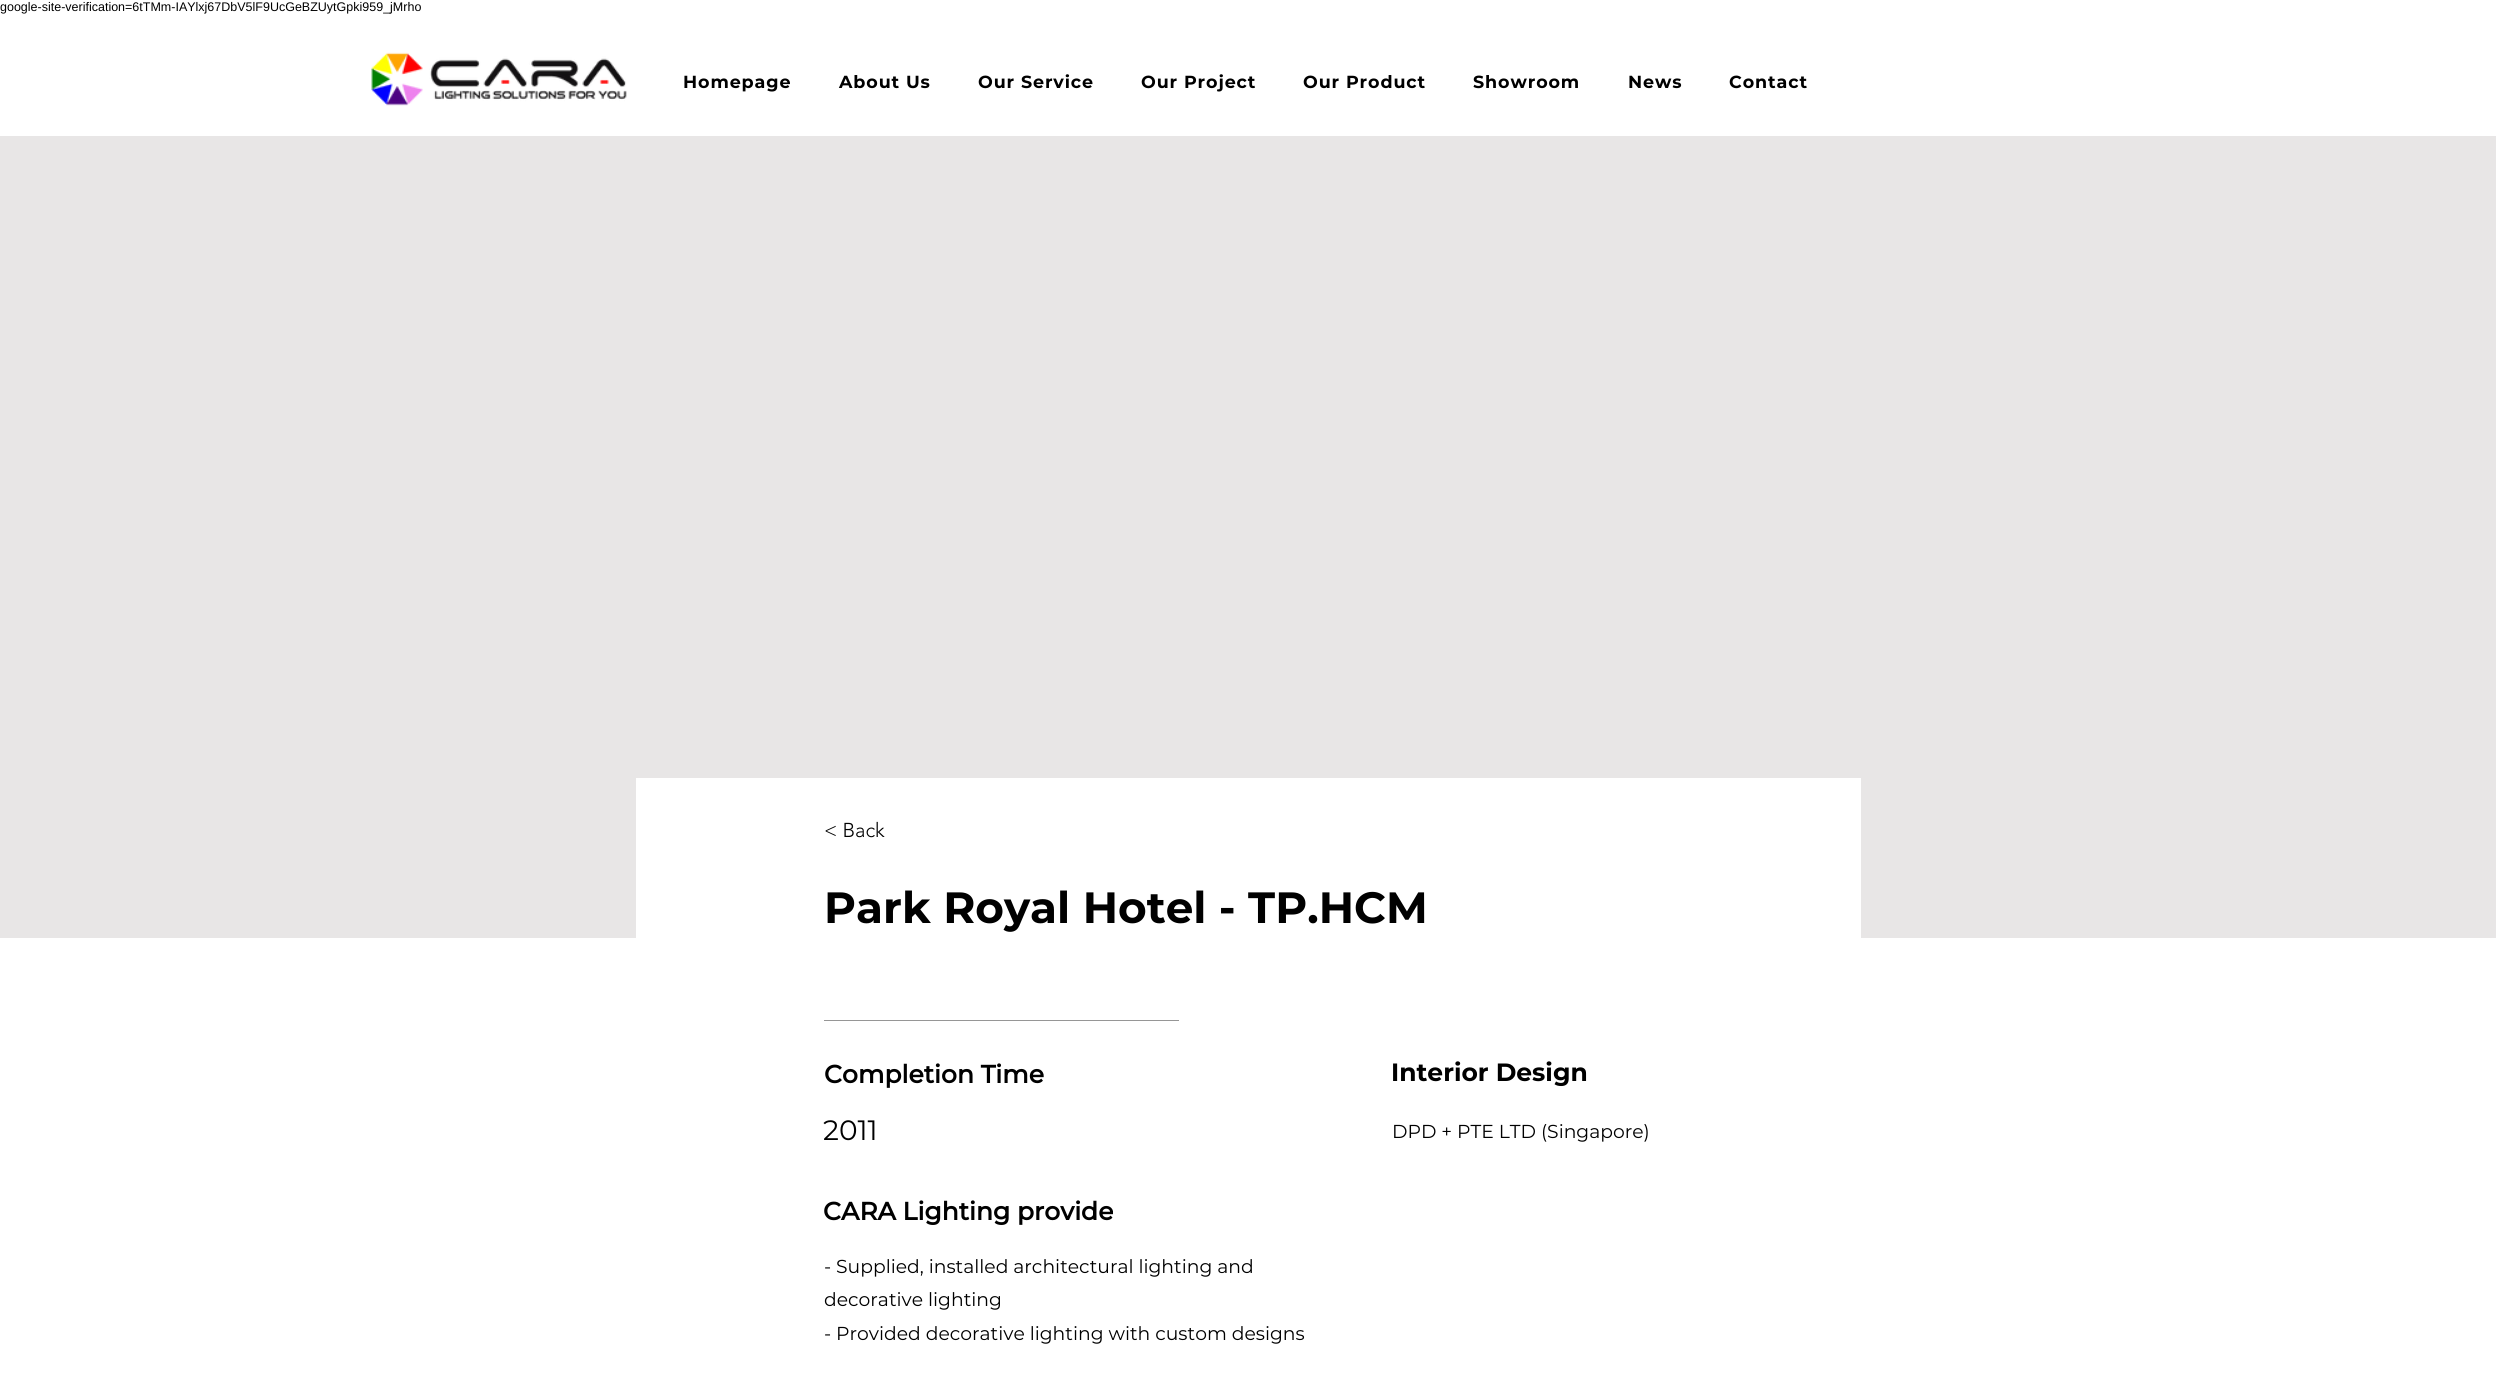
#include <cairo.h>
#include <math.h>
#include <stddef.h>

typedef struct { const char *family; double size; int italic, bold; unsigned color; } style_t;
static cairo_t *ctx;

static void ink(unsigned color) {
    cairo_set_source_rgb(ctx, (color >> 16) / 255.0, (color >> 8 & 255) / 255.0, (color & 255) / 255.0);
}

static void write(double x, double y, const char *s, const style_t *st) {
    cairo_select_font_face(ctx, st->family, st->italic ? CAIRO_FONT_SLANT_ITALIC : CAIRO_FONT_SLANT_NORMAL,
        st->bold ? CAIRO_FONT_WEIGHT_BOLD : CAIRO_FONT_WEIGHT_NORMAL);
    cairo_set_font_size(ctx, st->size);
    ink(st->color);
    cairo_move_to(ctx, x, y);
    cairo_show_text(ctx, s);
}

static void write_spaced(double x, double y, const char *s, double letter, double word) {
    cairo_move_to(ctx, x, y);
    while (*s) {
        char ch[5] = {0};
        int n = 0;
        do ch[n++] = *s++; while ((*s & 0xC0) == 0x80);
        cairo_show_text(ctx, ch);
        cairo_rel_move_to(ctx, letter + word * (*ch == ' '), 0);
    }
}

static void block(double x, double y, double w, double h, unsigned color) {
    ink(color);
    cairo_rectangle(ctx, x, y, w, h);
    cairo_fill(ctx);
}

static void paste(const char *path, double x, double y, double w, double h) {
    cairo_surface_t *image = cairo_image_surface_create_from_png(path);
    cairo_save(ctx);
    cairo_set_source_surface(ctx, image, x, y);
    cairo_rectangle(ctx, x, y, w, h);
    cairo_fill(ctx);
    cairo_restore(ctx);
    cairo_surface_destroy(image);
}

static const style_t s1 = {"Liberation Sans", 12.5, 0, 0, 0x000000};
static const style_t s2 = {"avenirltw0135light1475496 Light", 20, 0, 0, 0x000000};
static const style_t s3 = {"Montserrat", 43.75, 0, 1, 0x000000};
static const style_t s4 = {"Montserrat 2", 25, 0, 1, 0x000000};
static const style_t s5 = {"Montserrat", 25, 0, 1, 0x000000};
static const style_t s6 = {"Montserrat", 28, 0, 0, 0x000000};
static const style_t s7 = {"Montserrat", 18.75, 0, 0, 0x000000};

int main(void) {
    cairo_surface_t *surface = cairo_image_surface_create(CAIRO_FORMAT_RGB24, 2496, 1397);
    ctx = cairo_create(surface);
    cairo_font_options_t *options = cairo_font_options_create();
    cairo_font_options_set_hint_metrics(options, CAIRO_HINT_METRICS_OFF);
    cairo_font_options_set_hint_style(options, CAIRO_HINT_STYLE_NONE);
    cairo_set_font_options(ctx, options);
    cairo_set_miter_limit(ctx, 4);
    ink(0xffffff);
    cairo_paint(ctx);
    write(0, 11, "google-site-verification=6tTMm-IAYlxj67DbV5lF9UcGeBZUytGpki959_jMrho", &s1);
    paste("pic1.png", 371, 52, 256, 54);
    cairo_select_font_face(ctx, "Montserrat", CAIRO_FONT_SLANT_NORMAL, CAIRO_FONT_WEIGHT_BOLD);
    cairo_set_font_size(ctx, 17.5);
    write_spaced(683, 88, "Homepage", 0.9, 0);
    write_spaced(839, 88, "About Us", 0.9, 0);
    write_spaced(978, 88, "Our Service", 0.9, 0);
    write_spaced(1141, 88, "Our Project", 0.9, 0);
    write_spaced(1303, 88, "Our Product", 0.9, 0);
    write_spaced(1473, 88, "Showroom", 0.9, 0);
    write_spaced(1628, 88, "News", 0.9, 0);
    write_spaced(1729, 88, "Contact", 0.9, 0);
    block(0, 136, 2496, 802, 0xe8e6e6);
    block(636, 778, 1225, 160, 0xffffff);
    write(824, 837, "< Back", &s2);
    write(824, 923, "Park Royal Hotel - TP.HCM", &s3);
    block(824, 1020, 355, 1, 0x969696);
    write(824, 1083, "Completion Time", &s4);
    write(1391, 1081, "Interior Design", &s5);
    write(823, 1140, "2011", &s6);
    write(1392, 1138, "DPD + PTE LTD (Singapore)", &s7);
    write(823, 1220, "CARA Lighting provide", &s4);
    write(824, 1273, "- Supplied, installed architectural lighting and", &s7);
    write(824, 1306, "decorative lighting", &s7);
    write(824, 1340, "- Provided decorative lighting with custom designs", &s7);
    cairo_surface_write_to_png(surface, "screenshot.png");
    cairo_font_options_destroy(options);
    cairo_destroy(ctx);
    cairo_surface_destroy(surface);
    return 0;
}
